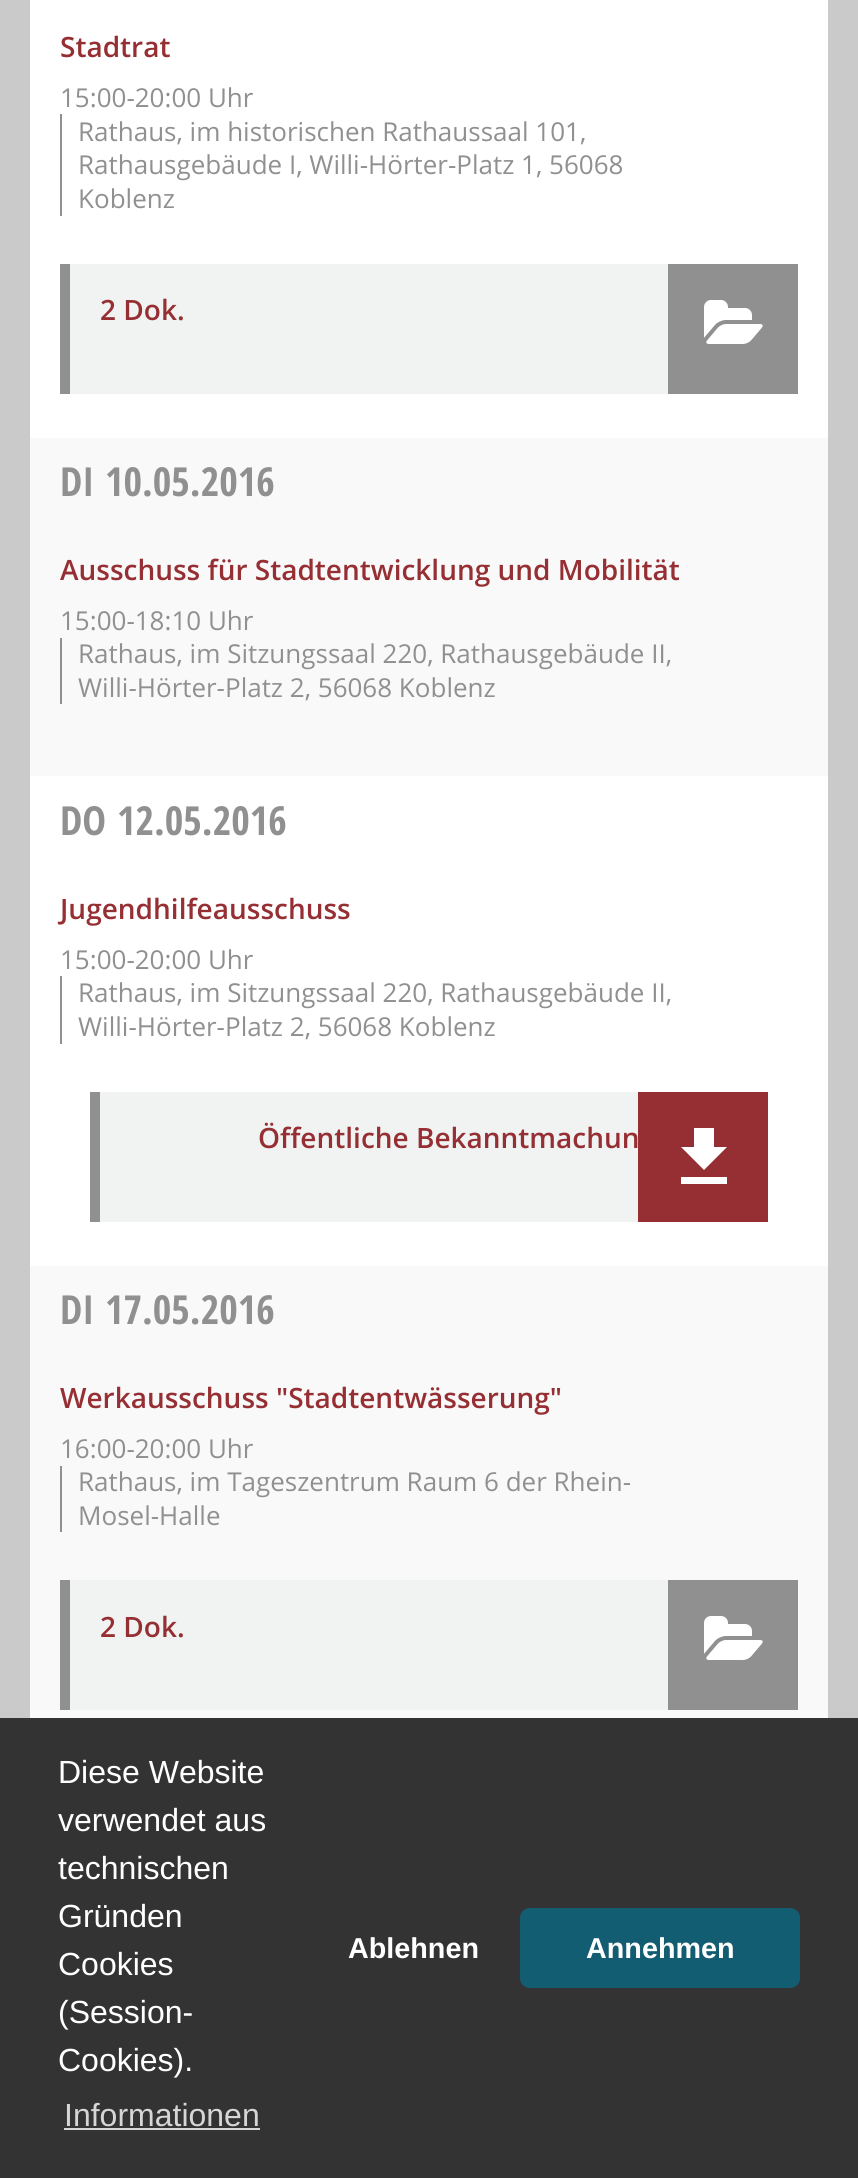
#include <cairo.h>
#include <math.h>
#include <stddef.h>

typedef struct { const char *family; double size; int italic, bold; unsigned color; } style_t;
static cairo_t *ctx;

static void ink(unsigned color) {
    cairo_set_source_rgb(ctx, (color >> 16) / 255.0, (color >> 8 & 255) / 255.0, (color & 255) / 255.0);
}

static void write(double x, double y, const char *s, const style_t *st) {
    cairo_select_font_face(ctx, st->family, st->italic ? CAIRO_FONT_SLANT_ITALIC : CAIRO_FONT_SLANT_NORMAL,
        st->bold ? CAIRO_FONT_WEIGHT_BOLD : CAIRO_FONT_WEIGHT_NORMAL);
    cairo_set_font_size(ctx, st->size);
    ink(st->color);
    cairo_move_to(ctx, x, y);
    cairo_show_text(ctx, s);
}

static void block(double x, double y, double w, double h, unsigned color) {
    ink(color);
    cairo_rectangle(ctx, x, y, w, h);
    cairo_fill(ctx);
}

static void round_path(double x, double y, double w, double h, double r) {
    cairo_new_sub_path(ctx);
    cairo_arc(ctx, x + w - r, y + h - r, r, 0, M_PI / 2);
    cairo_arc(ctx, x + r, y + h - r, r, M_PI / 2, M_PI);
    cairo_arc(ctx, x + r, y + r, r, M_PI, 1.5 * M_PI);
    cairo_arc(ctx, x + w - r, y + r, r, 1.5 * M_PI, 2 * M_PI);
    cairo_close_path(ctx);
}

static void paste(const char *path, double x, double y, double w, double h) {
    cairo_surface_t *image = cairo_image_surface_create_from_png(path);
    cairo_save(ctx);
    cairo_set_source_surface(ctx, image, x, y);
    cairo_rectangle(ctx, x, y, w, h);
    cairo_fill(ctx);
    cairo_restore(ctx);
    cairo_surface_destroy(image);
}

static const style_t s1 = {"Open Sans SemiBold", 28, 0, 0, 0x962f33};
static const style_t s2 = {"Open Sans", 26, 0, 0, 0x909090};
static const style_t s3 = {"Open Sans Condensed", 40, 0, 1, 0x909090};
static const style_t s4 = {"Liberation Sans", 32, 0, 0, 0xffffff};
static const style_t s5 = {"Liberation Sans", 32, 0, 0, 0xd6d6d6};
static const style_t s6 = {"Liberation Sans", 28.75, 0, 1, 0xffffff};

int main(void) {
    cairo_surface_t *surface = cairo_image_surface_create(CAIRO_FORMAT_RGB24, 858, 2178);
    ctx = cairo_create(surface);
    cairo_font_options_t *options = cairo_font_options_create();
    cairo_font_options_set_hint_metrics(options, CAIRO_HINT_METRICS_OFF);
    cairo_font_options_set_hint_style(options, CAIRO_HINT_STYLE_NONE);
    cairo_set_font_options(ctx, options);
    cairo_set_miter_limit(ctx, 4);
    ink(0xcacaca);
    cairo_paint(ctx);
    block(30, 0, 798, 1266, 0xffffff);
    write(60, 57, "Stadtrat", &s1);
    write(60, 107, "15:00-20:00 Uhr", &s2);
    block(60, 114, 2, 102, 0x909090);
    write(78, 141, "Rathaus, im historischen Rathaussaal 101,", &s2);
    write(78, 174, "Rathausgebäude I, Willi-Hörter-Platz 1, 56068", &s2);
    write(78, 208, "Koblenz", &s2);
    block(70, 264, 598, 130, 0xf0f3f2);
    block(60, 264, 10, 130, 0x909090);
    write(100, 320, "2 Dok.", &s1);
    block(668, 264, 130, 130, 0x909090);
    paste("pic1.png", 704, 300, 59, 44);
    block(30, 438, 798, 338, 0xf9f9f9);
    write(60, 496, "DI", &s3);
    write(105, 496, "10.05.2016", &s3);
    write(60, 580, "Ausschuss für Stadtentwicklung und Mobilität", &s1);
    write(60, 630, "15:00-18:10 Uhr", &s2);
    block(60, 638, 2, 66, 0x909090);
    write(78, 663, "Rathaus, im Sitzungssaal 220, Rathausgebäude II,", &s2);
    write(78, 697, "Willi-Hörter-Platz 2, 56068 Koblenz", &s2);
    write(60, 835, "DO", &s3);
    write(117, 835, "12.05.2016", &s3);
    write(60, 919, "Jugendhilfeausschuss", &s1);
    write(60, 969, "15:00-20:00 Uhr", &s2);
    block(60, 976, 2, 68, 0x909090);
    write(78, 1002, "Rathaus, im Sitzungssaal 220, Rathausgebäude II,", &s2);
    write(78, 1036, "Willi-Hörter-Platz 2, 56068 Koblenz", &s2);
    block(100, 1092, 538, 130, 0xf0f3f2);
    block(90, 1092, 10, 130, 0x909090);
    write(258, 1148, "Öffentliche Bekanntmachun", &s1);
    block(638, 1092, 130, 130, 0x962f33);
    ink(0xffffff);
    cairo_new_path(ctx);
    cairo_move_to(ctx, 727, 1147);
    cairo_line_to(ctx, 714, 1147);
    cairo_line_to(ctx, 714, 1128);
    cairo_line_to(ctx, 694, 1128);
    cairo_line_to(ctx, 694, 1147);
    cairo_line_to(ctx, 681, 1147);
    cairo_line_to(ctx, 704, 1170);
    cairo_close_path(ctx);
    cairo_move_to(ctx, 681, 1177);
    cairo_line_to(ctx, 681, 1184);
    cairo_line_to(ctx, 727, 1184);
    cairo_line_to(ctx, 727, 1177);
    cairo_close_path(ctx);
    cairo_fill(ctx);
    block(30, 1266, 798, 452, 0xf9f9f9);
    write(60, 1324, "DI", &s3);
    write(105, 1324, "17.05.2016", &s3);
    write(60, 1408, "Werkausschuss \"Stadtentwässerung\"", &s1);
    write(60, 1458, "16:00-20:00 Uhr", &s2);
    block(60, 1466, 2, 66, 0x909090);
    write(78, 1491, "Rathaus, im Tageszentrum Raum 6 der Rhein-", &s2);
    write(78, 1525, "Mosel-Halle", &s2);
    block(70, 1580, 598, 130, 0xf0f3f2);
    block(60, 1580, 10, 130, 0x909090);
    write(100, 1637, "2 Dok.", &s1);
    block(668, 1580, 130, 130, 0x909090);
    paste("pic1.png", 704, 1616, 59, 44);
    block(0, 1718, 858, 460, 0x333333);
    write(58, 1783, "Diese Website", &s4);
    write(58, 1831, "verwendet aus", &s4);
    write(58, 1879, "technischen", &s4);
    write(58, 1927, "Gründen", &s4);
    write(58, 1975, "Cookies", &s4);
    write(58, 2023, "(Session-", &s4);
    write(58, 2071, "Cookies).", &s4);
    write(64, 2126, "Informationen", &s5);
    block(64, 2128, 196, 2, 0xd6d6d6);
    write(348, 1958, "Ablehnen", &s6);
    ink(0x135d72);
    round_path(520, 1908, 280, 80, 10);
    cairo_fill(ctx);
    write(586, 1958, "Annehmen", &s6);
    cairo_surface_write_to_png(surface, "screenshot.png");
    cairo_font_options_destroy(options);
    cairo_destroy(ctx);
    cairo_surface_destroy(surface);
    return 0;
}
